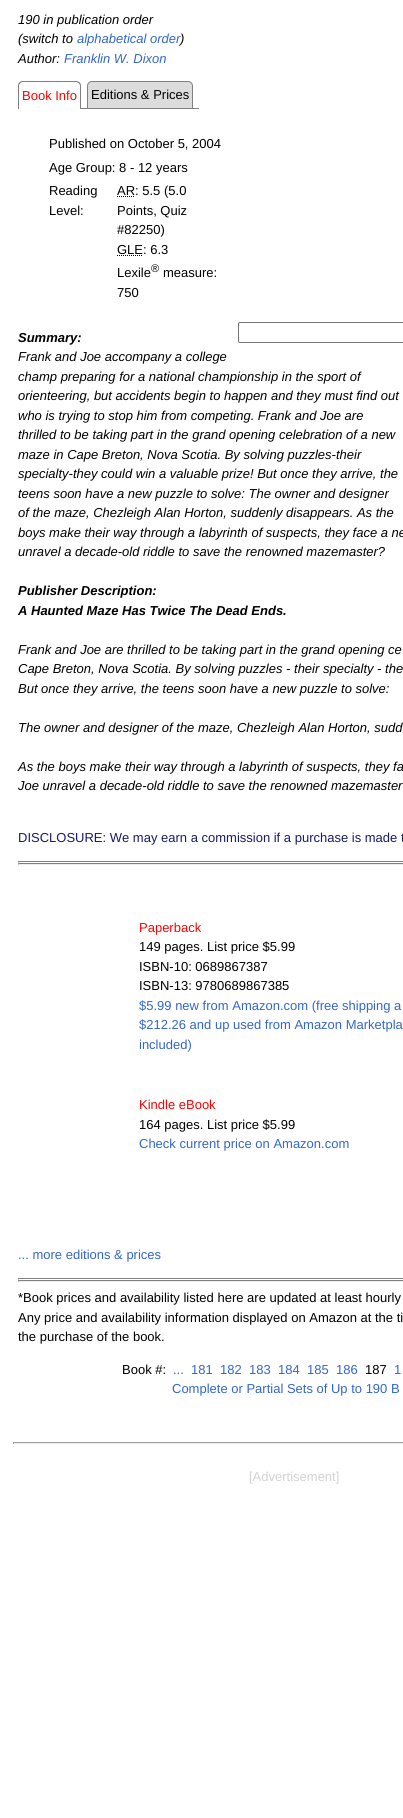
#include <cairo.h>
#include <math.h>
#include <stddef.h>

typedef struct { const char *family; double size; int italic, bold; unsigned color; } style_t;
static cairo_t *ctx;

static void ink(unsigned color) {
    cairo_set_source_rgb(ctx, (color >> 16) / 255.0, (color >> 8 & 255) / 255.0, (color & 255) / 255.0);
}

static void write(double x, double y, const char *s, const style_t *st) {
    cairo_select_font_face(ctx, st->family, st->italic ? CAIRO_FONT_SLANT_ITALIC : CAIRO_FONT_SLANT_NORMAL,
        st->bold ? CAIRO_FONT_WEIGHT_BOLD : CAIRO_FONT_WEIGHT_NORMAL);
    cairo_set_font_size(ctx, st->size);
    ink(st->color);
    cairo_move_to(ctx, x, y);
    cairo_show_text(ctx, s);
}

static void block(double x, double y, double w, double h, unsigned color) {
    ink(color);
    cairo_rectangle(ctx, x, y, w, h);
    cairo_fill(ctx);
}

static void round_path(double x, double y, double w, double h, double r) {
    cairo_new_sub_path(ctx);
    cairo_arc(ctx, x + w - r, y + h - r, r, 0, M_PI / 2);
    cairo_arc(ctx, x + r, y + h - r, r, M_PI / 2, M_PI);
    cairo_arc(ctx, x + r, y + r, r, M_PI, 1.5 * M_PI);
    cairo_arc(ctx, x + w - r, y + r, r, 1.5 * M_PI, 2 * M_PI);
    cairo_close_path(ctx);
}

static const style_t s1 = {"Liberation Sans", 13, 1, 0, 0x000000};
static const style_t s2 = {"Liberation Sans", 13, 1, 0, 0x3366cc};
static const style_t s3 = {"Liberation Sans", 13, 0, 0, 0xff0000};
static const style_t s4 = {"Liberation Sans", 13, 0, 0, 0x000000};
static const style_t s5 = {"Liberation Sans", 11, 0, 0, 0x000000};
static const style_t s6 = {"Liberation Sans", 13, 1, 1, 0x000000};
static const style_t s7 = {"Liberation Sans", 13, 0, 0, 0x191970};
static const style_t s8 = {"Liberation Sans", 13, 0, 0, 0x3366cc};
static const style_t s9 = {"Liberation Sans", 13, 0, 0, 0xd3d3d3};

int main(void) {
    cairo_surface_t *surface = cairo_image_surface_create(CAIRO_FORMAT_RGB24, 403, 1818);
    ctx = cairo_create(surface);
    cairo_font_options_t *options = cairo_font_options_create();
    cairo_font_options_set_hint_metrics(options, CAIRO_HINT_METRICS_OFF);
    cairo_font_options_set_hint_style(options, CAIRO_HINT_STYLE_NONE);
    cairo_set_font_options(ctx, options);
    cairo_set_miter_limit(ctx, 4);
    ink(0xffffff);
    cairo_paint(ctx);
    write(18, 24, "190 in publication order", &s1);
    write(18, 43, "(switch to", &s1);
    write(77, 43, "alphabetical order", &s2);
    write(180, 43, ")", &s1);
    write(18, 63, "Author:", &s1);
    write(64, 63, "Franklin W. Dixon", &s2);
    ink(0x808080);
    cairo_set_fill_rule(ctx, CAIRO_FILL_RULE_EVEN_ODD);
    cairo_new_path(ctx);
    cairo_move_to(ctx, 23, 81);
    cairo_line_to(ctx, 76, 81);
    cairo_curve_to(ctx, 79, 81, 81, 83, 81, 86);
    cairo_line_to(ctx, 81, 109);
    cairo_line_to(ctx, 18, 109);
    cairo_line_to(ctx, 18, 86);
    cairo_curve_to(ctx, 18, 83, 20, 81, 23, 81);
    cairo_close_path(ctx);
    cairo_move_to(ctx, 23, 82);
    cairo_line_to(ctx, 76, 82);
    cairo_curve_to(ctx, 78, 82, 80, 84, 80, 86);
    cairo_line_to(ctx, 80, 109);
    cairo_line_to(ctx, 19, 109);
    cairo_line_to(ctx, 19, 86);
    cairo_curve_to(ctx, 19, 84, 21, 82, 23, 82);
    cairo_close_path(ctx);
    cairo_fill(ctx);
    write(22, 100, "Book Info", &s3);
    ink(0xdcdcdc);
    cairo_new_path(ctx);
    cairo_move_to(ctx, 92, 81.5);
    cairo_line_to(ctx, 188, 81.5);
    cairo_curve_to(ctx, 190.5, 81.5, 192.5, 83.5, 192.5, 86);
    cairo_line_to(ctx, 192.5, 108.5);
    cairo_line_to(ctx, 87.5, 108.5);
    cairo_line_to(ctx, 87.5, 86);
    cairo_curve_to(ctx, 87.5, 83.5, 89.5, 81.5, 92, 81.5);
    cairo_close_path(ctx);
    cairo_fill_preserve(ctx);
    ink(0x808080);
    cairo_set_line_width(ctx, 1);
    cairo_stroke(ctx);
    write(91, 99, "Editions & Prices", &s4);
    block(81, 108, 6, 1, 0x808080);
    block(193, 108, 6, 1, 0x808080);
    write(49, 148, "Published on October 5, 2004", &s4);
    write(49, 172, "Age Group: 8 - 12 years", &s4);
    write(49, 195, "Reading", &s4);
    write(49, 215, "Level:", &s4);
    cairo_new_path(ctx);
    cairo_move_to(ctx, 117, 196.5);
    cairo_line_to(ctx, 135, 196.5);
    cairo_set_dash(ctx, (double[]){1, 1}, 2, 0);
    cairo_stroke(ctx);
    write(117, 195, "AR: 5.5 (5.0", &s4);
    write(117, 215, "Points, Quiz", &s4);
    write(117, 234, "#82250)", &s4);
    write(117, 254, "GLE: 6.3", &s4);
    cairo_new_path(ctx);
    cairo_move_to(ctx, 117, 255.5);
    cairo_line_to(ctx, 143, 255.5);
    cairo_stroke(ctx);
    write(117, 277, "Lexile", &s4);
    write(151, 272, "®", &s5);
    write(163, 277, "measure:", &s4);
    write(117, 297, "750", &s4);
    write(18, 342, "Summary:", &s6);
    round_path(238.5, 322.5, 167, 20, 1.5);
    ink(0x767676);
    cairo_set_dash(ctx, NULL, 0, 0);
    cairo_stroke(ctx);
    write(18, 361, "Frank and Joe accompany a college", &s1);
    write(18, 381, "champ preparing for a national championship in the sport of", &s1);
    write(18, 400, "orienteering, but accidents begin to happen and they must find out", &s1);
    write(18, 420, "who is trying to stop him from competing. Frank and Joe are", &s1);
    write(18, 439, "thrilled to be taking part in the grand opening celebration of a new", &s1);
    write(18, 459, "maze in Cape Breton, Nova Scotia. By solving puzzles-their", &s1);
    write(18, 478, "specialty-they could win a valuable prize! But once they arrive, the", &s1);
    write(18, 498, "teens soon have a new puzzle to solve: The owner and designer", &s1);
    write(18, 517, "of the maze, Chezleigh Alan Horton, suddenly disappears. As the", &s1);
    write(18, 537, "boys make their way through a labyrinth of suspects, they face a ne", &s1);
    write(18, 556, "unravel a decade-old riddle to save the renowned mazemaster?", &s1);
    write(18, 595, "Publisher Description:", &s6);
    write(18, 615, "A Haunted Maze Has Twice The Dead Ends.", &s6);
    write(18, 654, "Frank and Joe are thrilled to be taking part in the grand opening ce", &s1);
    write(18, 673, "Cape Breton, Nova Scotia. By solving puzzles - their specialty - the", &s1);
    write(18, 693, "But once they arrive, the teens soon have a new puzzle to solve:", &s1);
    write(18, 732, "The owner and designer of the maze, Chezleigh Alan Horton, sudd", &s1);
    write(18, 771, "As the boys make their way through a labyrinth of suspects, they fa", &s1);
    write(18, 790, "Joe unravel a decade-old riddle to save the renowned mazemaster", &s1);
    write(18, 842, "DISCLOSURE: We may earn a commission if a purchase is made t", &s7);
    block(18, 861, 385, 1, 0x808080);
    block(18, 863, 385, 1, 0x808080);
    block(18, 864, 385, 1, 0xeeeeee);
    ink(0x9f9f9f);
    cairo_set_fill_rule(ctx, CAIRO_FILL_RULE_WINDING);
    cairo_new_path(ctx);
    cairo_move_to(ctx, 18, 865);
    cairo_line_to(ctx, 18, 861);
    cairo_line_to(ctx, 19, 864);
    cairo_close_path(ctx);
    cairo_fill(ctx);
    write(139, 932, "Paperback", &s3);
    write(139, 951, "149 pages. List price $5.99", &s4);
    write(139, 971, "ISBN-10: 0689867387", &s4);
    write(139, 990, "ISBN-13: 9780689867385", &s4);
    write(139, 1010, "$5.99 new from Amazon.com (free shipping a", &s8);
    write(139, 1029, "$212.26 and up used from Amazon Marketpla", &s8);
    write(139, 1049, "included)", &s8);
    write(139, 1109, "Kindle eBook", &s3);
    write(139, 1129, "164 pages. List price $5.99", &s4);
    write(139, 1148, "Check current price on Amazon.com", &s8);
    write(18, 1259, "... more editions & prices", &s8);
    block(18, 1278, 385, 1, 0x808080);
    block(18, 1280, 385, 1, 0x808080);
    block(18, 1281, 385, 1, 0xeeeeee);
    ink(0x9f9f9f);
    cairo_new_path(ctx);
    cairo_move_to(ctx, 18, 1282);
    cairo_line_to(ctx, 18, 1278);
    cairo_line_to(ctx, 19, 1281);
    cairo_close_path(ctx);
    cairo_fill(ctx);
    write(18, 1302, "*Book prices and availability listed here are updated at least hourly", &s4);
    write(18, 1322, "Any price and availability information displayed on Amazon at the ti", &s4);
    write(18, 1341, "the purchase of the book.", &s4);
    write(122, 1374, "Book #:", &s4);
    write(173, 1374, "...", &s8);
    write(191, 1374, "181", &s8);
    write(220, 1374, "182", &s8);
    write(249, 1374, "183", &s8);
    write(278, 1374, "184", &s8);
    write(307, 1374, "185", &s8);
    write(336, 1374, "186", &s8);
    write(365, 1374, "187", &s4);
    write(394, 1374, "1", &s8);
    write(172, 1393, "Complete or Partial Sets of Up to 190 B", &s8);
    block(13, 1442, 390, 1, 0x9f9f9f);
    block(13, 1443, 390, 1, 0xeeeeee);
    block(13, 1442, 1, 2, 0x9f9f9f);
    write(249, 1481, "[Advertisement]", &s9);
    cairo_surface_write_to_png(surface, "screenshot.png");
    cairo_font_options_destroy(options);
    cairo_destroy(ctx);
    cairo_surface_destroy(surface);
    return 0;
}
